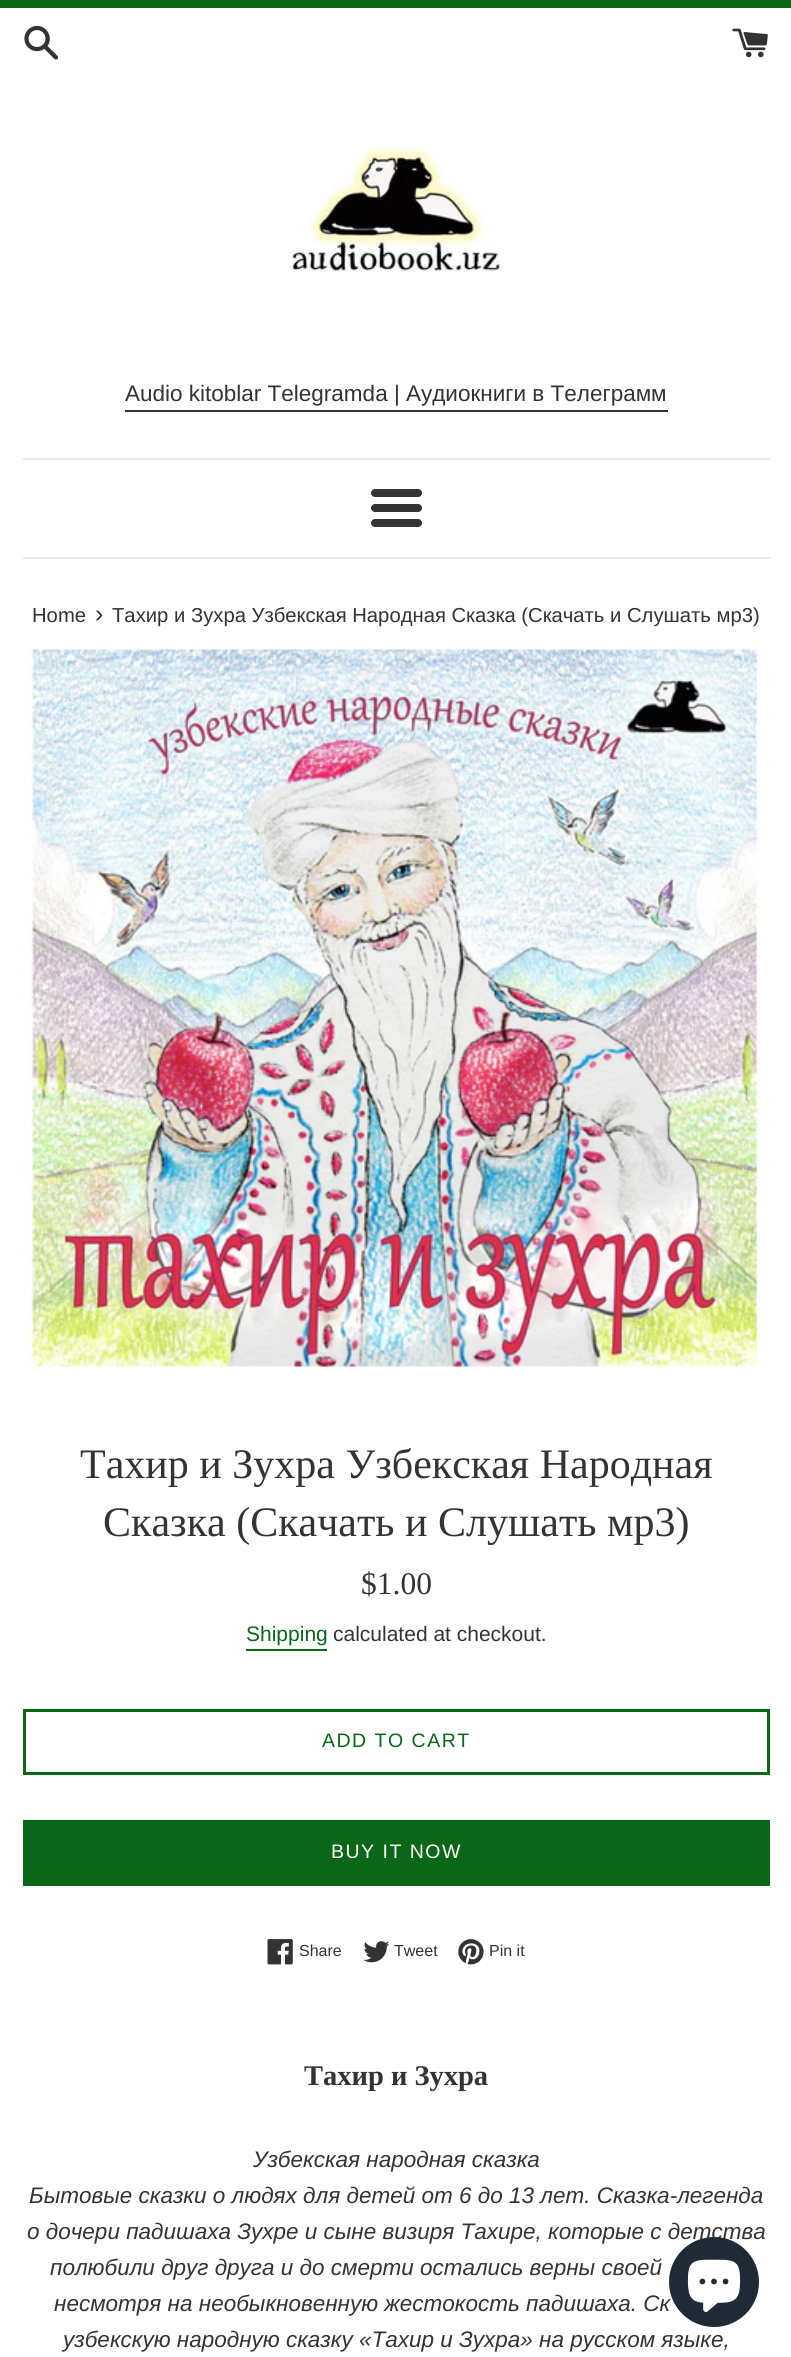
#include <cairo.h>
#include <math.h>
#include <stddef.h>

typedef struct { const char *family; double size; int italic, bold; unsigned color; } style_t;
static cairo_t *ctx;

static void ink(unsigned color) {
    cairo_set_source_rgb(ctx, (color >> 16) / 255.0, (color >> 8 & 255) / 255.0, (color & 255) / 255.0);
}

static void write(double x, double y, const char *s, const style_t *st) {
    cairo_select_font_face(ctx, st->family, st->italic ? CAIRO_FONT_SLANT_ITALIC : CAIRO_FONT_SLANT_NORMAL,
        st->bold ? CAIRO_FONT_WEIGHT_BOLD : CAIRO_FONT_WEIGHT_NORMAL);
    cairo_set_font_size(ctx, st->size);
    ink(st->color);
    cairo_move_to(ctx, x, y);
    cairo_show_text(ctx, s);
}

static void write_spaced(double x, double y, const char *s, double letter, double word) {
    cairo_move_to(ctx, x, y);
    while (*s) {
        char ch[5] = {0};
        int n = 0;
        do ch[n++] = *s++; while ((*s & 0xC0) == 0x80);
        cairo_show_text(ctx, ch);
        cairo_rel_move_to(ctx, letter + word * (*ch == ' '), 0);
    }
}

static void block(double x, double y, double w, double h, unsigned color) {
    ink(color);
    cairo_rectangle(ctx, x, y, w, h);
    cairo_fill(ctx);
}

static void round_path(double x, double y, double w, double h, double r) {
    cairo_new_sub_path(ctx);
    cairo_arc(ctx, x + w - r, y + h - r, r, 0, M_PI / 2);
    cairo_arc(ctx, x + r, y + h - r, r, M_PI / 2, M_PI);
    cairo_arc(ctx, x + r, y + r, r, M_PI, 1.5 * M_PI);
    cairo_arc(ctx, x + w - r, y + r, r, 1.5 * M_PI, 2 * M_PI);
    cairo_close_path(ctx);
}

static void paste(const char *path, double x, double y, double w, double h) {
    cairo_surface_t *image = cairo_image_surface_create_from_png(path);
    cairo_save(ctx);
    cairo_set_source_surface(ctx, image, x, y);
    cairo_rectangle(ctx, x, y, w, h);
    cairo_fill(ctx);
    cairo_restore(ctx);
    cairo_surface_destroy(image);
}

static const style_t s1 = {"Liberation Sans", 22.5, 0, 0, 0x333333};
static const style_t s2 = {"Liberation Sans", 20.25, 0, 0, 0x333333};
static const style_t s3 = {"Liberation Sans", 25, 0, 0, 0x333333};
static const style_t s4 = {"Liberation Serif", 42, 0, 0, 0x333333};
static const style_t s5 = {"Liberation Serif", 31.5, 0, 0, 0x333333};
static const style_t s6 = {"Liberation Sans", 21, 0, 0, 0x096717};
static const style_t s7 = {"Liberation Sans", 21, 0, 0, 0x333333};
static const style_t s8 = {"Liberation Sans", 16, 0, 0, 0x333333};
static const style_t s9 = {"Liberation Serif", 28.5, 0, 1, 0x333333};
static const style_t s10 = {"Liberation Sans", 22.5, 1, 0, 0x333333};

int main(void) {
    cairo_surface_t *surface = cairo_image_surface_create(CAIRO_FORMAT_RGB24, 791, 2357);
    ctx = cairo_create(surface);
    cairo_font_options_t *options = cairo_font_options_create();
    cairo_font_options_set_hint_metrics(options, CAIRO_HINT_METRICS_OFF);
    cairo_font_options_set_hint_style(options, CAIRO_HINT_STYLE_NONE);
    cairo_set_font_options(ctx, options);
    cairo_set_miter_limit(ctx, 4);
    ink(0xffffff);
    cairo_paint(ctx);
    block(0, 0, 791, 8, 0x096717);
    paste("pic1.png", 24, 25, 35, 35);
    paste("pic2.png", 732, 28, 36, 30);
    paste("pic3.png", 289, 147, 214, 125);
    write(125, 401, "Audio kitoblar Telegramda | Аудиокниги в Телеграмм", &s1);
    block(125, 410, 543, 2, 0x333333);
    block(23, 458, 747, 2, 0xe8e8e8);
    ink(0x333333);
    round_path(371, 489, 51, 8, 4);
    cairo_fill(ctx);
    round_path(371, 504, 51, 8, 4);
    cairo_fill(ctx);
    round_path(371, 519, 51, 8, 4);
    cairo_fill(ctx);
    block(23, 557, 747, 2, 0xe8e8e8);
    write(32, 622, "Home", &s2);
    write(95, 622, "›", &s3);
    write(112, 622, "Тахир и Зухра Узбекская Народная Сказка (Скачать и Слушать мр3)", &s2);
    paste("pic4.png", 22, 649, 738, 718);
    write(80, 1478, "Тахир и Зухра Узбекская Народная", &s4);
    write(103, 1536, "Сказка (Скачать и Слушать мр3)", &s4);
    write(361, 1594, "$1.00", &s5);
    write(246, 1641, "Shipping", &s6);
    block(246, 1649, 81, 2, 0x096717);
    write(333, 1641, "calculated at checkout.", &s7);
    cairo_rectangle(ctx, 24.5, 1710.5, 744, 63);
    ink(0x096717);
    cairo_set_line_width(ctx, 3);
    cairo_stroke(ctx);
    cairo_set_font_size(ctx, 19.5);
    write_spaced(322, 1747, "ADD TO CART", 1.5, 0);
    block(23, 1820, 747, 66, 0x096717);
    ink(0xffffff);
    write_spaced(331, 1858, "BUY IT NOW", 1.5, 0);
    paste("pic5.png", 267, 1939, 26, 26);
    write(299, 1956, "Share", &s8);
    paste("pic6.png", 363, 1941, 27, 22);
    write(394, 1956, "Tweet", &s8);
    paste("pic7.png", 458, 1939, 26, 26);
    write(489, 1956, "Pin it", &s8);
    write(304, 2085, "Тахир и Зухра", &s9);
    write(253, 2167, "Узбекская народная сказка", &s10);
    write(29, 2203, "Бытовые сказки о людях для детей от 6 до 13 лет. Сказка-легенда", &s10);
    write(27, 2239, "о дочери падишаха Зухре и сыне визиря Тахире, которые с детства", &s10);
    write(50, 2275, "полюбили друг друга и до смерти остались верны своей", &s10);
    write(54, 2311, "несмотря на необыкновенную жестокость падишаха. Ск", &s10);
    write(63, 2347, "узбекскую народную сказку «Тахир и Зухра» на русском языке,", &s10);
    ink(0x202a36);
    cairo_new_path(ctx);
    cairo_arc(ctx, 714, 2282, 45, 0, 2 * M_PI);
    cairo_fill(ctx);
    paste("pic8.png", 687, 2259, 54, 53);
    cairo_surface_write_to_png(surface, "screenshot.png");
    cairo_font_options_destroy(options);
    cairo_destroy(ctx);
    cairo_surface_destroy(surface);
    return 0;
}
